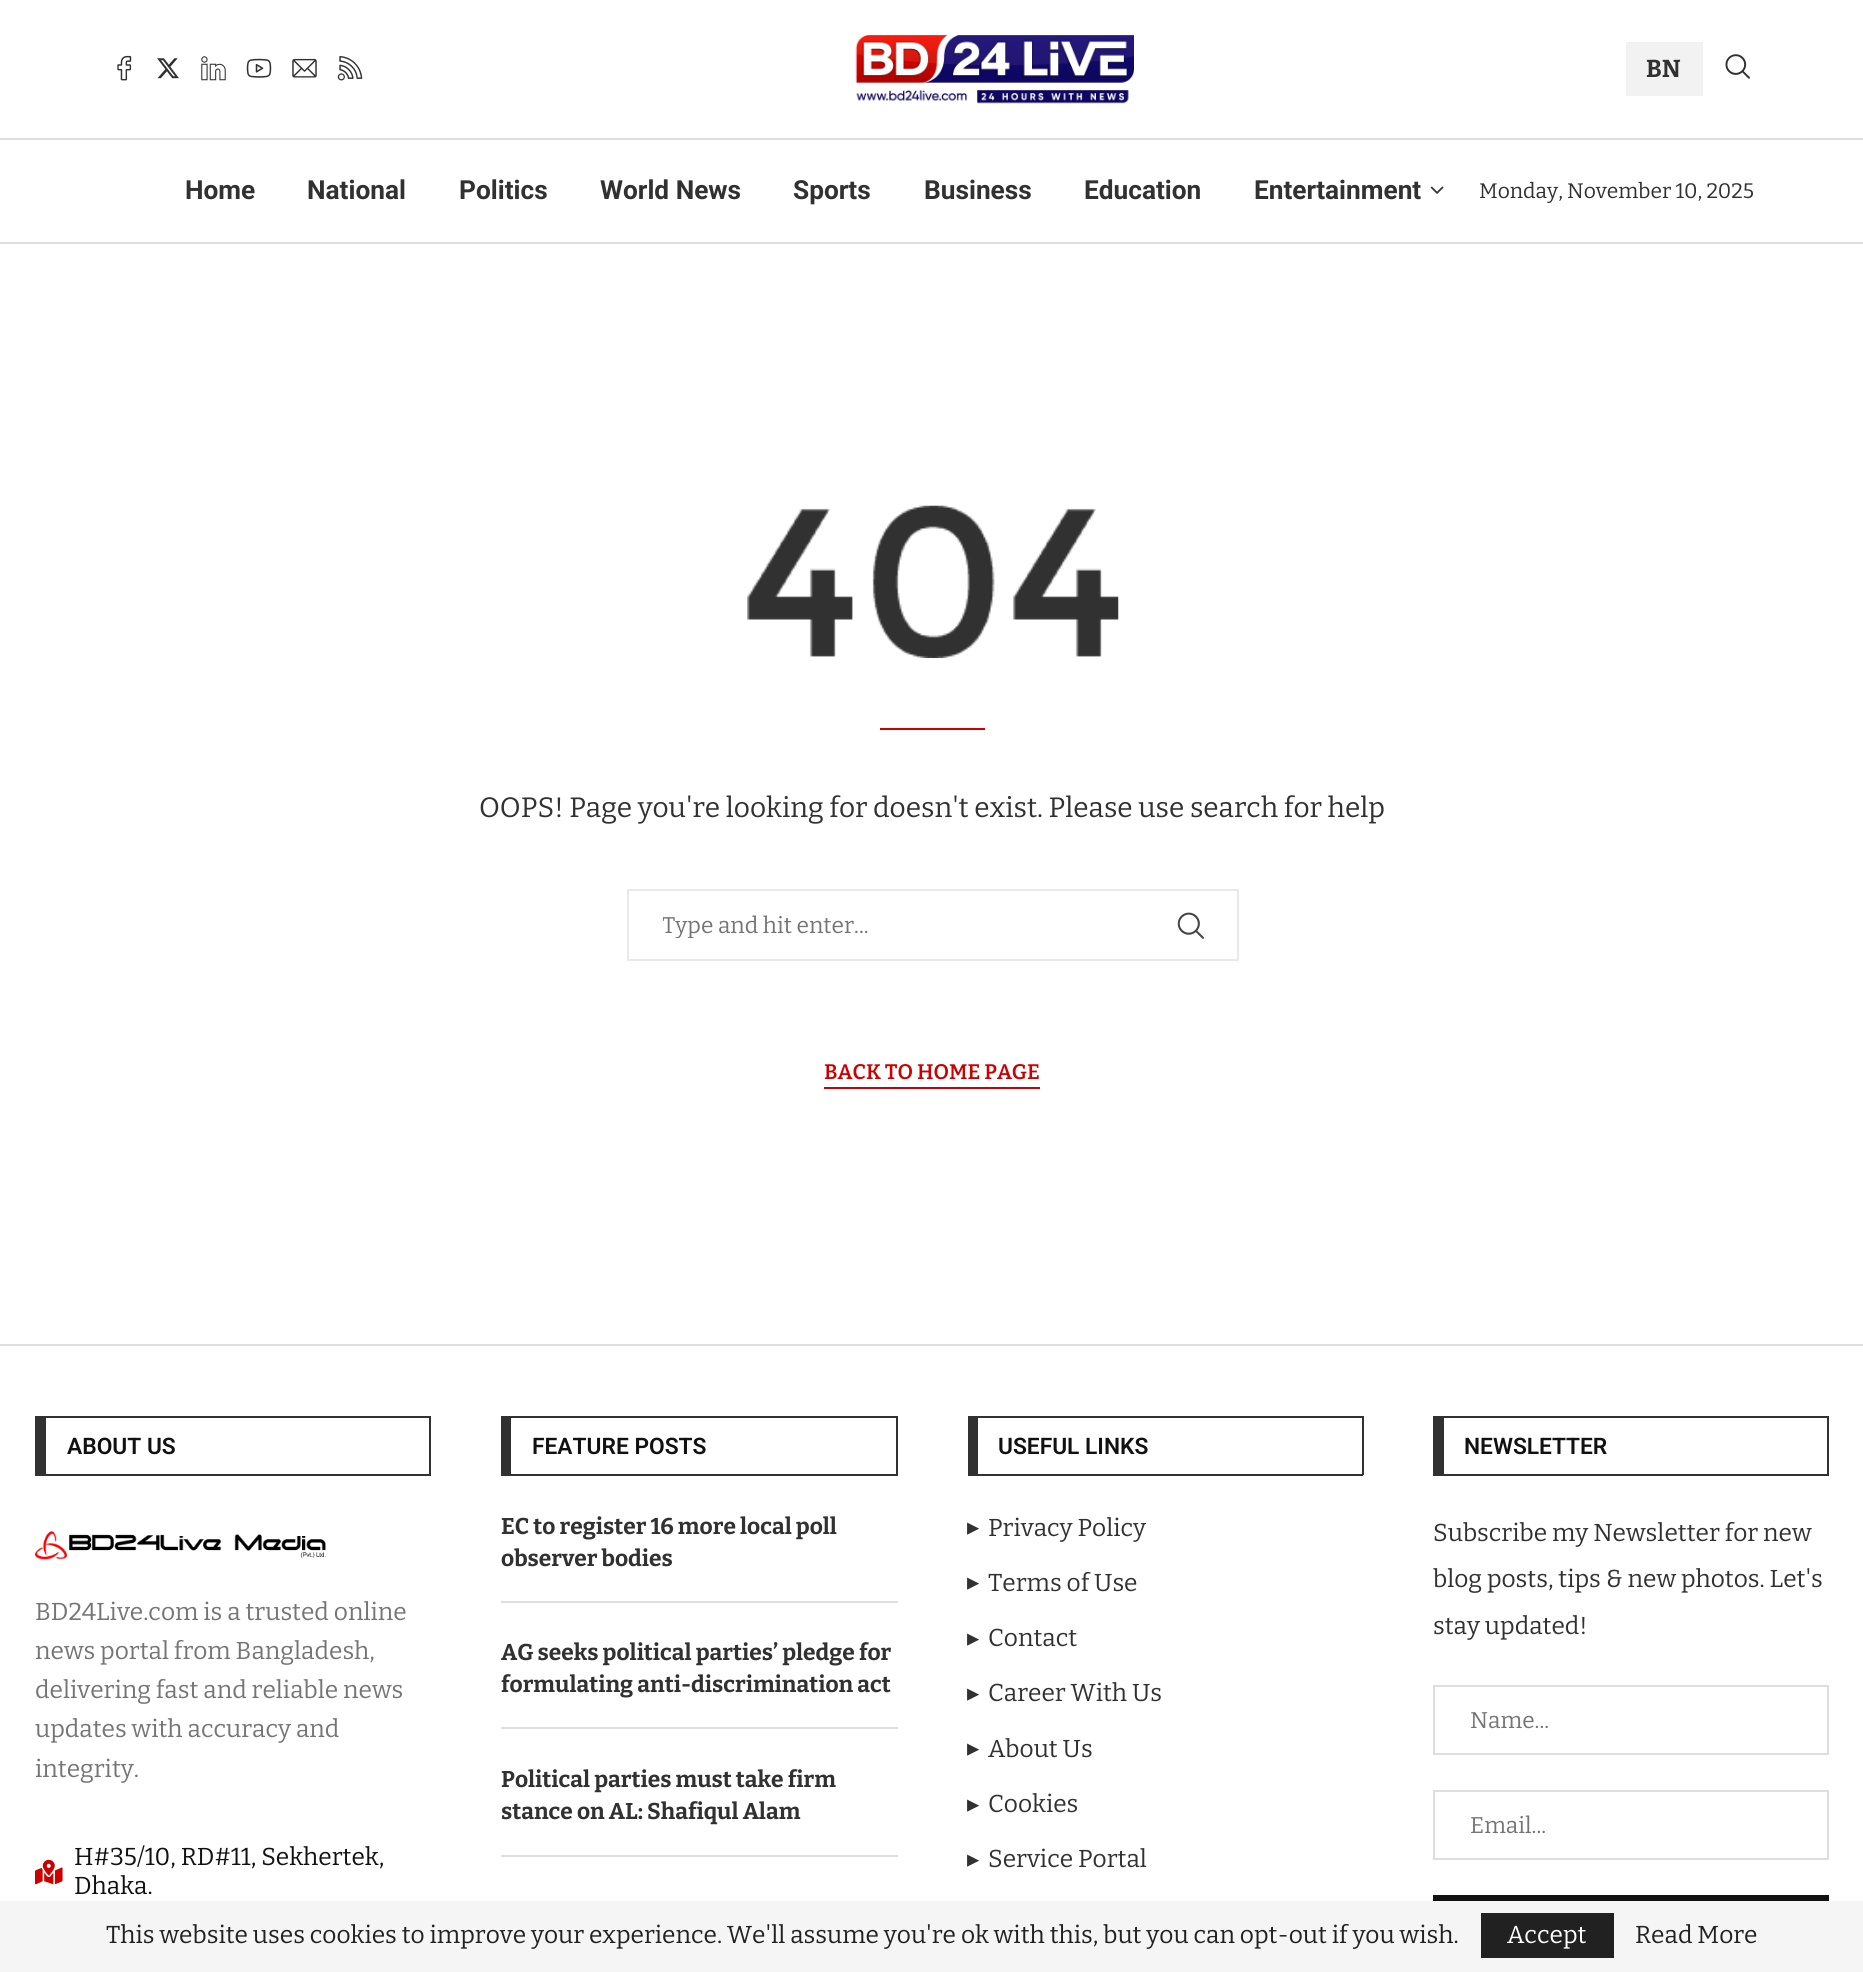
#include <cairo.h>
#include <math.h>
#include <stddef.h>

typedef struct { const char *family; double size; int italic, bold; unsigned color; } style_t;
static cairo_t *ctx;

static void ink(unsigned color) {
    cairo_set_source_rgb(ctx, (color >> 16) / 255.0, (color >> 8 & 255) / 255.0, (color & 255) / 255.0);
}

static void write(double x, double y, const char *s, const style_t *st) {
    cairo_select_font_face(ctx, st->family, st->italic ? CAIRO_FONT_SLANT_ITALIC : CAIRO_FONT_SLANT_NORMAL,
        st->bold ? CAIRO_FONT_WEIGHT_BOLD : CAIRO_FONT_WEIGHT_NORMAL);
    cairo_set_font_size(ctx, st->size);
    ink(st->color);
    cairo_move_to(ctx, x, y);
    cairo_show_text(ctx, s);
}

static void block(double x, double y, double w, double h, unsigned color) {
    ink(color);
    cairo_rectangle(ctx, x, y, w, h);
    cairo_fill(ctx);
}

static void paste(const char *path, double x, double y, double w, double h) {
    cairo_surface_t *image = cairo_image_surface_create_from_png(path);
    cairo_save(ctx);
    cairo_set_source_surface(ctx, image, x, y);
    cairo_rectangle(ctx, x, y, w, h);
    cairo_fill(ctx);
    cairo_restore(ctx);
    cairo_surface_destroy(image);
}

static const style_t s1 = {"Bitter", 24.5, 0, 1, 0x313131};
static const style_t s2 = {"Roboto", 26.25, 0, 1, 0x313131};
static const style_t s3 = {"Bitter", 21, 0, 0, 0x313131};
static const style_t s4 = {"Bitter", 28, 0, 0, 0x313131};
static const style_t s5 = {"Bitter", 22.75, 0, 0, 0x757575};
static const style_t s6 = {"Bitter SemiBold", 21, 0, 0, 0xcc0000};
static const style_t s7 = {"Roboto SemiBold", 22.75, 0, 0, 0x111111};
static const style_t s8 = {"Bitter", 24.5, 0, 0, 0x757575};
static const style_t s9 = {"Bitter", 24.5, 0, 0, 0x111111};
static const style_t s10 = {"Bitter", 22.75, 0, 1, 0x313131};
static const style_t s11 = {"DejaVu Sans", 24.5, 0, 0, 0x313131};
static const style_t s12 = {"Bitter", 24.5, 0, 0, 0x313131};
static const style_t s13 = {"Bitter", 24.5, 0, 0, 0x212121};
static const style_t s14 = {"Bitter", 24.5, 0, 0, 0xffffff};

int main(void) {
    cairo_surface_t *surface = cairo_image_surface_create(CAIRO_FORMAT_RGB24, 1863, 1972);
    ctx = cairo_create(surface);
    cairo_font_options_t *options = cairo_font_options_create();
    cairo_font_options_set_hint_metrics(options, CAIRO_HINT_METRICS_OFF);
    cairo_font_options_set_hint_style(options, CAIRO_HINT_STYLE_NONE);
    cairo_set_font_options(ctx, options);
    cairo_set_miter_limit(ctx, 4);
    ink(0xffffff);
    cairo_paint(ctx);
    paste("pic1.png", 117, 55, 15, 26);
    paste("pic2.png", 157, 58, 22, 21);
    paste("pic3.png", 201, 56, 25, 25);
    paste("pic4.png", 246, 58, 26, 20);
    paste("pic5.png", 292, 58, 25, 20);
    paste("pic6.png", 337, 56, 26, 25);
    paste("pic7.png", 855, 35, 279, 69);
    block(1626, 42, 77, 54, 0xf2f2f2);
    write(1646, 77, "BN", &s1);
    paste("pic8.png", 1725, 54, 25, 25);
    block(0, 138, 1863, 2, 0xdedede);
    block(0, 242, 1863, 2, 0xdedede);
    write(185, 199, "Home", &s2);
    write(307, 199, "National", &s2);
    write(459, 199, "Politics", &s2);
    write(600, 199, "World News", &s2);
    write(793, 199, "Sports", &s2);
    write(924, 199, "Business", &s2);
    write(1084, 199, "Education", &s2);
    write(1254, 199, "Entertainment", &s2);
    paste("pic9.png", 1430, 186, 14, 8);
    write(1479, 198, "Monday, November 10, 2025", &s3);
    paste("pic10.png", 747, 505, 372, 153);
    block(880, 728, 105, 2, 0xcc0000);
    write(479, 817, "OOPS! Page you're looking for doesn't exist. Please use search for help", &s4);
    cairo_rectangle(ctx, 628, 890, 610, 70);
    ink(0xe9e9e9);
    cairo_stroke(ctx);
    cairo_save(ctx);
    cairo_rectangle(ctx, 663, 912, 504, 26);
    cairo_clip(ctx);
    write(662, 933, "Type and hit enter...", &s5);
    cairo_restore(ctx);
    paste("pic11.png", 1177, 912, 27, 27);
    write(824, 1079, "BACK TO HOME PAGE", &s6);
    block(824, 1087, 216, 2, 0xcc0000);
    block(0, 1344, 1863, 2, 0xdedede);
    block(46, 1416, 385, 2, 0x313131);
    block(429, 1416, 2, 59, 0x313131);
    block(35, 1474, 396, 2, 0x313131);
    block(35, 1416, 11, 58, 0x313131);
    write(67, 1454, "ABOUT US", &s7);
    paste("pic12.png", 35, 1531, 291, 29);
    write(35, 1620, "BD24Live.com is a trusted online", &s8);
    write(35, 1659, "news portal from Bangladesh,", &s8);
    write(35, 1698, "delivering fast and reliable news", &s8);
    write(35, 1737, "updates with accuracy and", &s8);
    write(35, 1777, "integrity.", &s8);
    paste("pic13.png", 35, 1859, 28, 26);
    write(74, 1865, "H#35/10, RD#11, Sekhertek,", &s9);
    write(74, 1894, "Dhaka.", &s9);
    block(511, 1416, 387, 2, 0x313131);
    block(896, 1416, 2, 59, 0x313131);
    block(501, 1474, 397, 2, 0x313131);
    block(501, 1416, 10, 58, 0x313131);
    write(532, 1454, "FEATURE POSTS", &s7);
    block(501, 1601, 397, 2, 0xdedede);
    write(501, 1534, "EC to register 16 more local poll", &s10);
    write(501, 1566, "observer bodies", &s10);
    block(501, 1727, 397, 2, 0xdedede);
    write(501, 1660, "AG seeks political parties’ pledge for", &s10);
    write(501, 1692, "formulating anti-discrimination act", &s10);
    block(501, 1855, 397, 2, 0xdedede);
    write(501, 1787, "Political parties must take firm", &s10);
    write(501, 1819, "stance on AL: Shafiqul Alam", &s10);
    block(978, 1416, 385, 2, 0x313131);
    block(1362, 1416, 2, 59, 0x313131);
    block(968, 1474, 395, 2, 0x313131);
    block(968, 1416, 10, 58, 0x313131);
    write(998, 1454, "USEFUL LINKS", &s7);
    write(967, 1535, "▸", &s11);
    write(988, 1536, "Privacy Policy", &s12);
    write(967, 1590, "▸", &s11);
    write(988, 1591, "Terms of Use", &s12);
    write(967, 1646, "▸", &s11);
    write(988, 1646, "Contact", &s12);
    write(967, 1701, "▸", &s11);
    write(988, 1701, "Career With Us", &s12);
    write(967, 1756, "▸", &s11);
    write(988, 1757, "About Us", &s12);
    write(967, 1812, "▸", &s11);
    write(988, 1812, "Cookies", &s12);
    write(967, 1867, "▸", &s11);
    write(988, 1867, "Service Portal", &s12);
    block(1444, 1416, 385, 2, 0x313131);
    block(1827, 1416, 2, 59, 0x313131);
    block(1433, 1474, 396, 2, 0x313131);
    block(1433, 1416, 11, 58, 0x313131);
    write(1464, 1454, "NEWSLETTER", &s7);
    write(1433, 1541, "Subscribe my Newsletter for new", &s12);
    write(1433, 1587, "blog posts, tips & new photos. Let's", &s12);
    write(1433, 1634, "stay updated!", &s12);
    cairo_rectangle(ctx, 1434, 1686, 394, 68);
    ink(0xdedede);
    cairo_stroke(ctx);
    write(1470, 1728, "Name...", &s5);
    cairo_rectangle(ctx, 1434, 1791, 394, 68);
    ink(0xdedede);
    cairo_stroke(ctx);
    write(1470, 1833, "Email...", &s5);
    block(1433, 1895, 396, 6, 0x111111);
    block(0, 1901, 1863, 71, 0xf5f5f5);
    write(106, 1943, "This website uses cookies to improve your experience. We'll assume you're ok with this, but you can opt-out if you wish.", &s13);
    block(1481, 1913, 133, 45, 0x212121);
    write(1507, 1943, "Accept", &s14);
    write(1635, 1943, "Read More", &s13);
    cairo_surface_write_to_png(surface, "screenshot.png");
    cairo_font_options_destroy(options);
    cairo_destroy(ctx);
    cairo_surface_destroy(surface);
    return 0;
}
